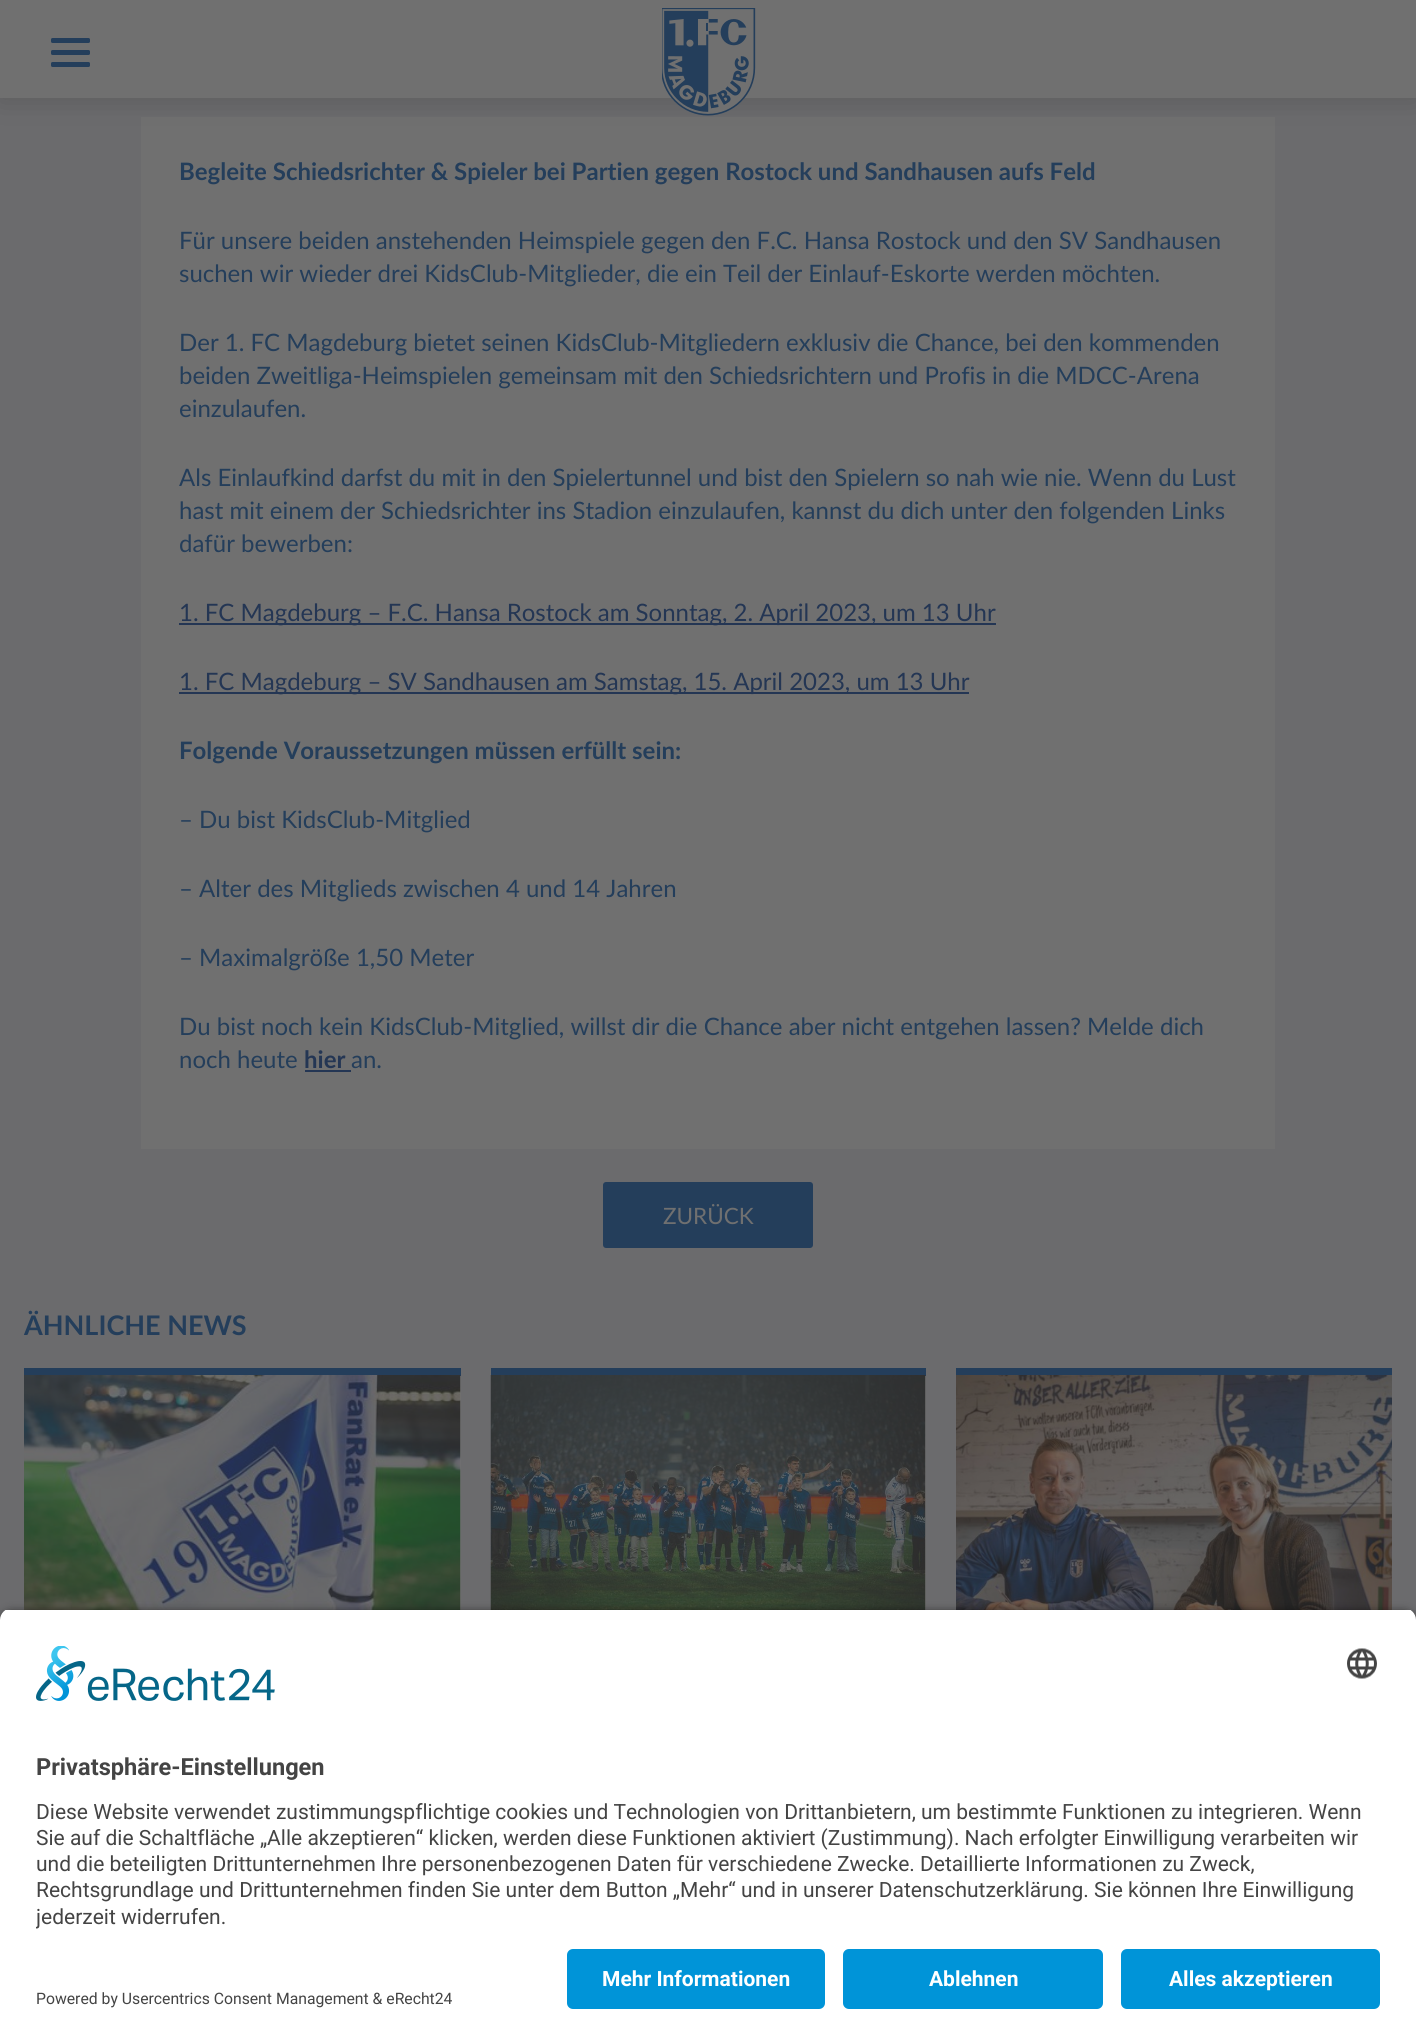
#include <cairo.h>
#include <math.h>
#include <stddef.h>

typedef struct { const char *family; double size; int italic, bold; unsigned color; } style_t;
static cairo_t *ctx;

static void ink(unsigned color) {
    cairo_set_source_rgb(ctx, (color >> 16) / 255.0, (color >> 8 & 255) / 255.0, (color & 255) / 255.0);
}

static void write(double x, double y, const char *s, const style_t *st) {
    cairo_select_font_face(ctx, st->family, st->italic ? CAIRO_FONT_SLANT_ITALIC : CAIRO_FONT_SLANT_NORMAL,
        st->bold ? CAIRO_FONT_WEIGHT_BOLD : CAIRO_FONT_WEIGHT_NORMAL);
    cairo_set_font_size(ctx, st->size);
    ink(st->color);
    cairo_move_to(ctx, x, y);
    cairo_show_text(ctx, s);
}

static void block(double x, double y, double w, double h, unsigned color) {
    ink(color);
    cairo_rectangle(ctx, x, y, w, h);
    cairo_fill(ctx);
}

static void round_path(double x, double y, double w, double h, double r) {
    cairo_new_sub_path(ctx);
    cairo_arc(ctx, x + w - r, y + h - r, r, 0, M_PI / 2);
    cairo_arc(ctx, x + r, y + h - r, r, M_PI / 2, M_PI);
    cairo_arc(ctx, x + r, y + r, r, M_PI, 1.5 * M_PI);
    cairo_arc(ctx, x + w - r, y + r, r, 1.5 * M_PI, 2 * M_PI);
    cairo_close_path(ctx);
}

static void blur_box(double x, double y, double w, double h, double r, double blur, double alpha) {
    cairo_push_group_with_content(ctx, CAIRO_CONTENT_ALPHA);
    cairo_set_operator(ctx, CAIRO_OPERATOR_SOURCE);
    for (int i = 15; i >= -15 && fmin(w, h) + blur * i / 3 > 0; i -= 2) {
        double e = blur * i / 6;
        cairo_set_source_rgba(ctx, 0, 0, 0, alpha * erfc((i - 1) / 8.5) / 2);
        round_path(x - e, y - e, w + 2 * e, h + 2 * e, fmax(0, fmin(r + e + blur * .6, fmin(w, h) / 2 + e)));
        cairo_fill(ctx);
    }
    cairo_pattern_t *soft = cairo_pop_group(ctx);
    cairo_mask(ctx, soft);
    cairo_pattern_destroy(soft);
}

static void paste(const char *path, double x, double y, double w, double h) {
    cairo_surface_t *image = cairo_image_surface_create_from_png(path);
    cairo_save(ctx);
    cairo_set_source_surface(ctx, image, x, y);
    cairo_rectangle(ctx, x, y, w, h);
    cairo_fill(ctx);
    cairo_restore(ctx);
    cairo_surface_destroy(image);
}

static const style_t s1 = {"Lato", 24, 0, 1, 0x243e5b};
static const style_t s2 = {"Lato", 24, 0, 0, 0x243e5b};
static const style_t s3 = {"Lato", 24, 0, 0, 0x243654};
static const style_t s4 = {"Lato", 24, 0, 1, 0x243654};
static const style_t s5 = {"Lato", 22.5, 0, 0, 0x707070};
static const style_t s6 = {"Lato", 27, 0, 1, 0x243e5b};
static const style_t s7 = {"Roboto", 23.6, 0, 1, 0x444444};
static const style_t s8 = {"Roboto", 21, 0, 0, 0x444444};
static const style_t s9 = {"Roboto", 21, 0, 1, 0xffffff};
static const style_t s10 = {"Roboto", 15.75, 0, 0, 0x444444};

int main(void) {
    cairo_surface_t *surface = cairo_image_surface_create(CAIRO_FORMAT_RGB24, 1416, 2044);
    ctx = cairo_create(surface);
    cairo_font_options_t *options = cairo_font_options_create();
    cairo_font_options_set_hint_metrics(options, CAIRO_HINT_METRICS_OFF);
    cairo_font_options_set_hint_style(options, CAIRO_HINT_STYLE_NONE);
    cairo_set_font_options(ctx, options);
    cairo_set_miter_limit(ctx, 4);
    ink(0x6b6b6d);
    cairo_paint(ctx);
    block(141, 117, 1134, 1032, 0x707070);
    ink(0x242424);
    blur_box(0, 0, 1416, 98, 0, 15, 0.25);
    block(0, 0, 1416, 98, 0x707070);
    ink(0x243e5b);
    round_path(51, 38, 39, 5, 1.5);
    cairo_fill(ctx);
    round_path(51, 50, 39, 5, 1.5);
    cairo_fill(ctx);
    round_path(51, 62, 39, 5, 1.5);
    cairo_fill(ctx);
    paste("pic1.png", 662, 8, 94, 108);
    write(179, 180, "Begleite Schiedsrichter & Spieler bei Partien gegen Rostock und Sandhausen aufs Feld", &s1);
    write(179, 249, "Für unsere beiden anstehenden Heimspiele gegen den F.C. Hansa Rostock und den SV Sandhausen", &s2);
    write(179, 282, "suchen wir wieder drei KidsClub-Mitglieder, die ein Teil der Einlauf-Eskorte werden möchten.", &s2);
    write(179, 351, "Der 1. FC Magdeburg bietet seinen KidsClub-Mitgliedern exklusiv die Chance, bei den kommenden", &s2);
    write(179, 384, "beiden Zweitliga-Heimspielen gemeinsam mit den Schiedsrichtern und Profis in die MDCC-Arena", &s2);
    write(179, 417, "einzulaufen.", &s2);
    write(179, 486, "Als Einlaufkind darfst du mit in den Spielertunnel und bist den Spielern so nah wie nie. Wenn du Lust", &s2);
    write(179, 519, "hast mit einem der Schiedsrichter ins Stadion einzulaufen, kannst du dich unter den folgenden Links", &s2);
    write(179, 552, "dafür bewerben:", &s2);
    block(179, 623, 817, 2, 0x243654);
    write(179, 621, "1. FC Magdeburg – F.C. Hansa Rostock am Sonntag, 2. April 2023, um 13 Uhr", &s3);
    block(179, 692, 790, 2, 0x243654);
    write(179, 690, "1. FC Magdeburg – SV Sandhausen am Samstag, 15. April 2023, um 13 Uhr", &s3);
    write(179, 759, "Folgende Voraussetzungen müssen erfüllt sein:", &s1);
    write(179, 828, "– Du bist KidsClub-Mitglied", &s2);
    write(179, 897, "– Alter des Mitglieds zwischen 4 und 14 Jahren", &s2);
    write(179, 966, "– Maximalgröße 1,50 Meter", &s2);
    write(179, 1035, "Du bist noch kein KidsClub-Mitglied, willst dir die Chance aber nicht entgehen lassen? Melde dich", &s2);
    write(179, 1068, "noch heute", &s2);
    write(304, 1068, "hier", &s4);
    block(305, 1070, 46, 2, 0x243654);
    write(351, 1068, "an.", &s2);
    round_path(603, 1182, 210, 66, 3);
    cairo_fill(ctx);
    write(663, 1224, "ZURÜCK", &s5);
    write(24, 1335, "ÄHNLICHE NEWS", &s6);
    block(460, 1376, 1, 234, 0x707070);
    block(24, 1368, 437, 8, 0x243e5b);
    paste("pic2.png", 24, 1375, 437, 235);
    block(925, 1376, 1, 234, 0x707070);
    block(491, 1368, 435, 8, 0x243e5b);
    paste("pic3.png", 490, 1375, 436, 235);
    block(956, 1368, 436, 7, 0x243e5b);
    paste("pic4.png", 956, 1375, 436, 235);
    ink(0x000000);
    blur_box(0, 1613, 1416, 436, 12, 5, 0.8);
    cairo_save(ctx);
    cairo_new_path(ctx);
    cairo_move_to(ctx, 12, 1608);
    cairo_line_to(ctx, 1404, 1608);
    cairo_curve_to(ctx, 1410.5, 1608, 1416, 1613.5, 1416, 1620);
    cairo_line_to(ctx, 1416, 1937);
    cairo_line_to(ctx, 0, 1937);
    cairo_line_to(ctx, 0, 1620);
    cairo_curve_to(ctx, 0, 1613.5, 5.5, 1608, 12, 1608);
    cairo_close_path(ctx);
    cairo_clip(ctx);
    block(0, 1610, 1416, 327, 0xffffff);
    cairo_restore(ctx);
    paste("pic5.png", 36, 1646, 239, 55);
    paste("pic6.png", 1347, 1648, 30, 31);
    write(36, 1775, "Privatsphäre-Einstellungen", &s7);
    write(36, 1819, "Diese Website verwendet zustimmungspflichtige cookies und Technologien von Drittanbietern, um bestimmte Funktionen zu integrieren. Wenn", &s8);
    write(36, 1845, "Sie auf die Schaltfläche „Alle akzeptieren“ klicken, werden diese Funktionen aktiviert (Zustimmung). Nach erfolgter Einwilligung verarbeiten wir", &s8);
    write(36, 1871, "und die beteiligten Drittunternehmen Ihre personenbezogenen Daten für verschiedene Zwecke. Detaillierte Informationen zu Zweck,", &s8);
    write(36, 1897, "Rechtsgrundlage und Drittunternehmen finden Sie unter dem Button „Mehr“ und in unserer Datenschutzerklärung. Sie können Ihre Einwilligung", &s8);
    cairo_save(ctx);
    cairo_rectangle(ctx, 36, 1793, 1344, 144);
    cairo_clip(ctx);
    write(36, 1924, "jederzeit widerrufen.", &s8);
    cairo_restore(ctx);
    block(0, 1937, 1416, 107, 0xffffff);
    ink(0x0094d8);
    round_path(567, 1949, 258, 60, 6);
    cairo_fill(ctx);
    write(602, 1986, "Mehr Informationen", &s9);
    ink(0x0094d8);
    round_path(843, 1949, 260, 60, 6);
    cairo_fill(ctx);
    write(929, 1986, "Ablehnen", &s9);
    ink(0x0094d8);
    round_path(1121, 1949, 259, 60, 6);
    cairo_fill(ctx);
    write(1169, 1986, "Alles akzeptieren", &s9);
    write(36, 2004, "Powered by Usercentrics Consent Management & eRecht24", &s10);
    cairo_surface_write_to_png(surface, "screenshot.png");
    cairo_font_options_destroy(options);
    cairo_destroy(ctx);
    cairo_surface_destroy(surface);
    return 0;
}
